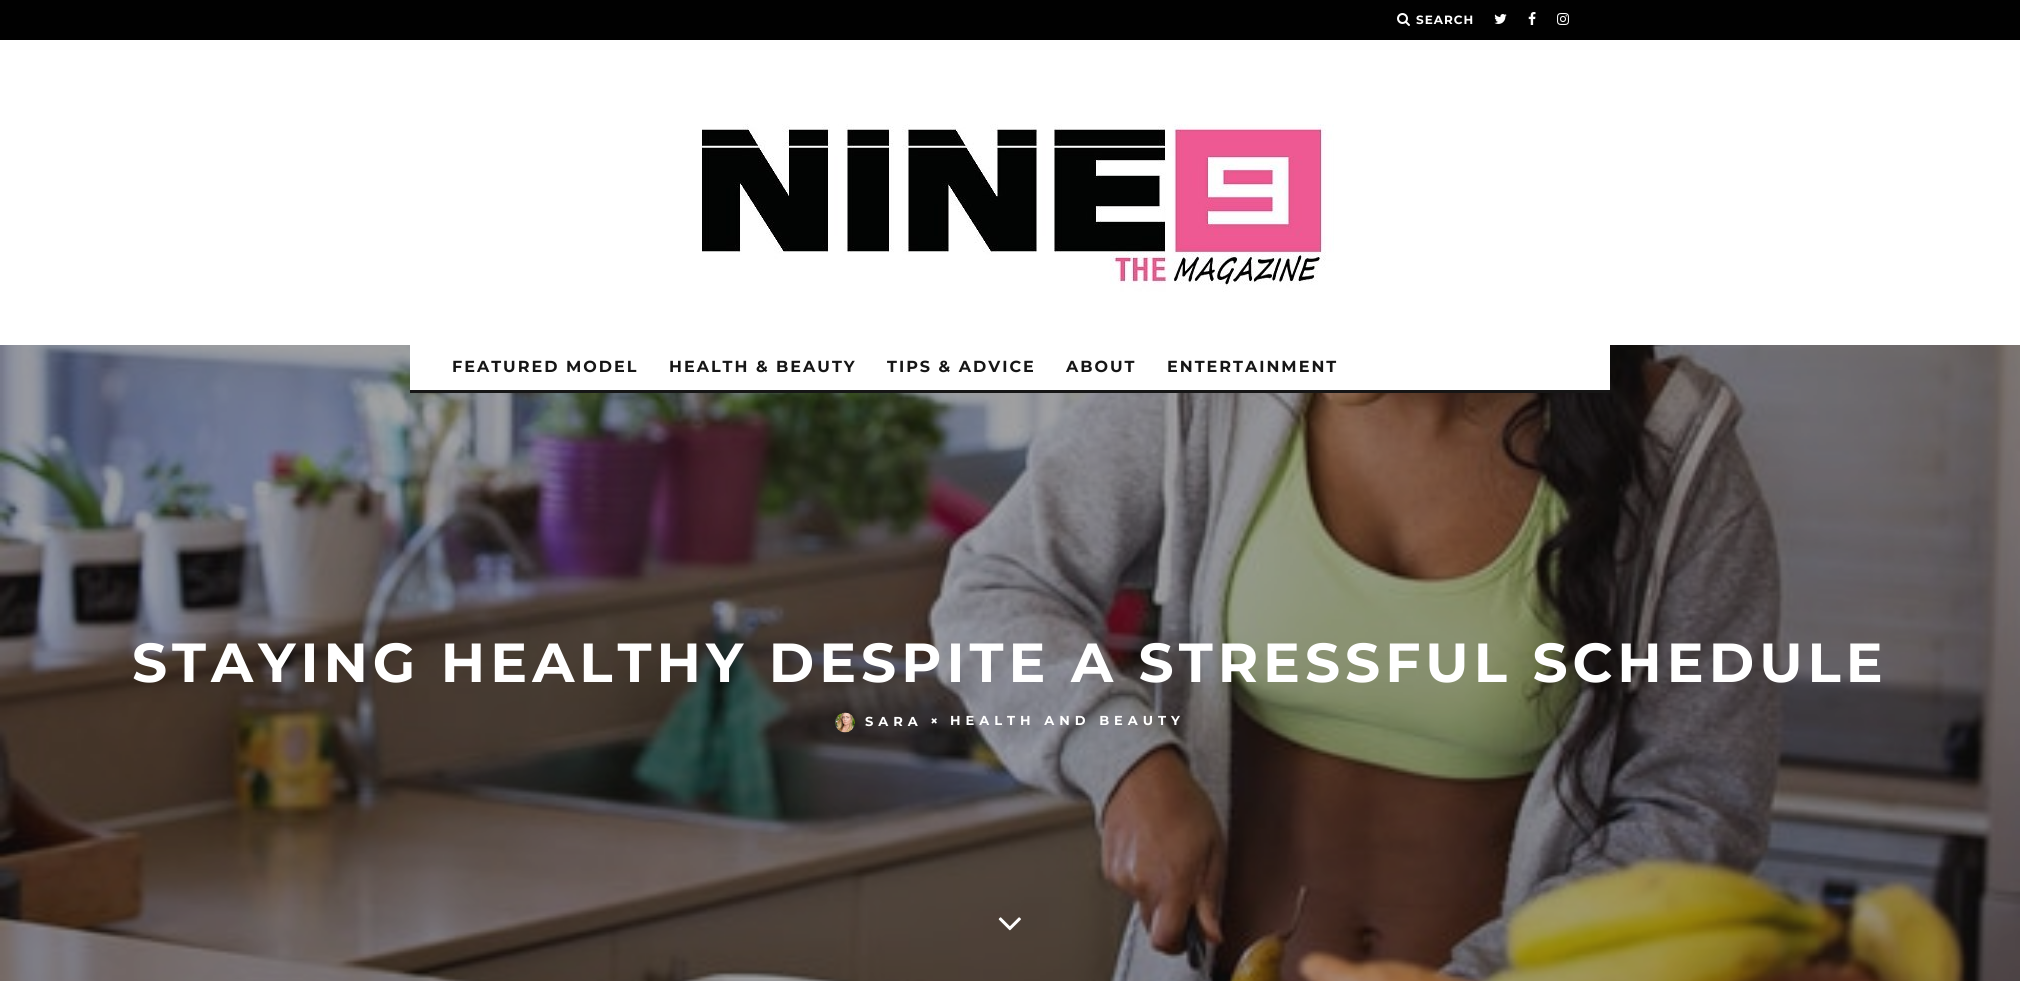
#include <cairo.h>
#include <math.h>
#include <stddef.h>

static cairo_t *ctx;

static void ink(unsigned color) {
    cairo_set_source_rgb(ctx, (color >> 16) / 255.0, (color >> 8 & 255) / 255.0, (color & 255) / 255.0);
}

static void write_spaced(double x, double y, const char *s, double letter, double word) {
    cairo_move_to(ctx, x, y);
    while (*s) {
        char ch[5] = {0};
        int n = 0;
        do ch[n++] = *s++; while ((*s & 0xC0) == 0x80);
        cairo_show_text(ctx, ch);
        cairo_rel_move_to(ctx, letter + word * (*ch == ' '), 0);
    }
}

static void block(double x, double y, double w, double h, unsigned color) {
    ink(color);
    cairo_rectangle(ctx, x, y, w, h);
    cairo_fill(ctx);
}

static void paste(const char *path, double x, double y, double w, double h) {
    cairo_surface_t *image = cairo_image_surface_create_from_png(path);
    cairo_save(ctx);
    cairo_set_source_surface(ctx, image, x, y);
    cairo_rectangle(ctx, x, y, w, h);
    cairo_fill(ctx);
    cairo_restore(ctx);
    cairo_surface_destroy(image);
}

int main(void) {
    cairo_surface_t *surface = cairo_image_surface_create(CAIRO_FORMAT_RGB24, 2020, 981);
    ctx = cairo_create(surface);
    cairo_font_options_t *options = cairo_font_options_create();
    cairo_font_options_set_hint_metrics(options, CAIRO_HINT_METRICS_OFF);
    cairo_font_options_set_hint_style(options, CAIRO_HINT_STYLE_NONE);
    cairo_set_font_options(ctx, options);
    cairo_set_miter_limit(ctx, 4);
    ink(0x161616);
    cairo_paint(ctx);
    block(0, 0, 2020, 40, 0x010101);
    paste("pic1.png", 1397, 13, 13, 13);
    cairo_select_font_face(ctx, "Montserrat", CAIRO_FONT_SLANT_NORMAL, CAIRO_FONT_WEIGHT_BOLD);
    cairo_set_font_size(ctx, 12);
    ink(0xffffff);
    write_spaced(1416, 24, "SEARCH", 1, 0);
    paste("pic2.png", 1494, 14, 13, 10);
    paste("pic3.png", 1528, 12, 8, 13);
    paste("pic4.png", 1557, 13, 12, 12);
    block(0, 40, 2020, 305, 0xffffff);
    paste("pic5.png", 702, 124, 632, 168);
    paste("pic6.png", 0, 345, 2020, 636);
    block(410, 345, 1200, 45, 0xffffff);
    block(410, 390, 1200, 3, 0x161616);
    cairo_set_font_size(ctx, 16);
    write_spaced(452, 372, "FEATURED MODEL", 2, 0);
    write_spaced(669, 372, "HEALTH & BEAUTY", 2, 0);
    write_spaced(887, 372, "TIPS & ADVICE", 2, 0);
    write_spaced(1066, 372, "ABOUT", 2, 0);
    write_spaced(1167, 372, "ENTERTAINMENT", 2, 0);
    cairo_set_font_size(ctx, 55);
    ink(0xffffff);
    write_spaced(132, 682, "STAYING HEALTHY DESPITE A STRESSFUL SCHEDULE", 5, 0);
    paste("pic7.png", 835, 712, 20, 21);
    cairo_set_font_size(ctx, 13);
    write_spaced(865, 726, "SARA", 5, 0);
    paste("pic8.png", 931, 718, 6, 6);
    write_spaced(950, 725, "HEALTH AND BEAUTY", 5, 0);
    paste("pic9.png", 998, 917, 23, 14);
    cairo_surface_write_to_png(surface, "screenshot.png");
    cairo_font_options_destroy(options);
    cairo_destroy(ctx);
    cairo_surface_destroy(surface);
    return 0;
}
